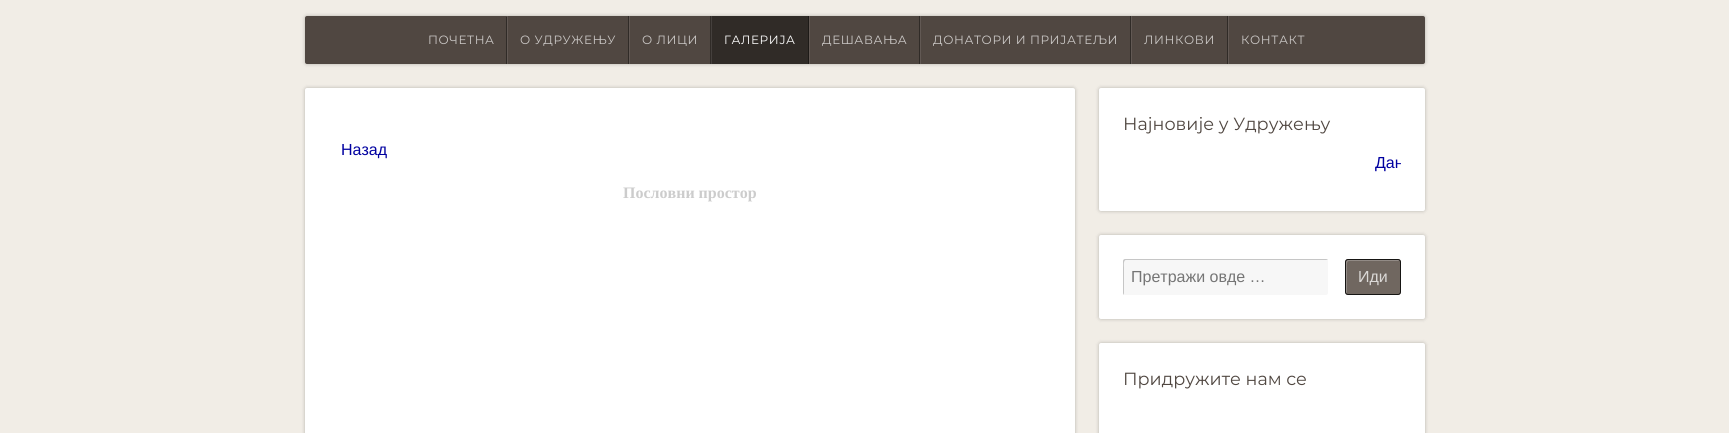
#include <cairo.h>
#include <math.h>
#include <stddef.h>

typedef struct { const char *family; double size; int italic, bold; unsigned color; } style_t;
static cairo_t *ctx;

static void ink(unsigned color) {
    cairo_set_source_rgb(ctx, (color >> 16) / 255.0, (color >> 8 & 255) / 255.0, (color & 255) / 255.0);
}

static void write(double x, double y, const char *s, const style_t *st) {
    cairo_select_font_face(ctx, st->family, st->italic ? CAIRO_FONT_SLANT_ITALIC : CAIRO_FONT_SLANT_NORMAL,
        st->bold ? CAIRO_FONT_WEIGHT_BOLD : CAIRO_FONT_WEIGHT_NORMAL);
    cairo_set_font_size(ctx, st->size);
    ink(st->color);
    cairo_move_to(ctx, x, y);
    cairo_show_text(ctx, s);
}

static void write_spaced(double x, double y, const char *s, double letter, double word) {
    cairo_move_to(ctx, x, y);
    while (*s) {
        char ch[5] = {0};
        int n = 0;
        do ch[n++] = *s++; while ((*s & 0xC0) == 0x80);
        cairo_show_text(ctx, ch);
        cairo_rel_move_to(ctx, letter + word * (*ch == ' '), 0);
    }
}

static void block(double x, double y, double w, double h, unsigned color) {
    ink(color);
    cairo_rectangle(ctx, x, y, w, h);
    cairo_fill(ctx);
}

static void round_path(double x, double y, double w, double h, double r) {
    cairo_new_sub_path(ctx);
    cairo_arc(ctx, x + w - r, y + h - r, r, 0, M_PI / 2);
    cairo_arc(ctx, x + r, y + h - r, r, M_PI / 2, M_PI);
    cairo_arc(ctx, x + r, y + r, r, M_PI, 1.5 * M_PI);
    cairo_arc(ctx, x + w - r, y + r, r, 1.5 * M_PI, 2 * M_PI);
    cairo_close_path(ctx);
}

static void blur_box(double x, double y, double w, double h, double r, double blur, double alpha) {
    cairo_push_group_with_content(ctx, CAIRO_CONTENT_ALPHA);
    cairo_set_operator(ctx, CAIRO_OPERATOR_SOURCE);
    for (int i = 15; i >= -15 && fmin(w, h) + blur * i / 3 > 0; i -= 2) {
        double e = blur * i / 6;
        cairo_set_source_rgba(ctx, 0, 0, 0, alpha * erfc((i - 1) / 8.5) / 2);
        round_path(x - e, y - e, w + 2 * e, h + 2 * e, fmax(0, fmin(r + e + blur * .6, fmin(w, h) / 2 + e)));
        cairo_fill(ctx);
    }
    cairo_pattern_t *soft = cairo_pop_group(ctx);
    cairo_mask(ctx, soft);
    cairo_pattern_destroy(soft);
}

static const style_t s1 = {"Liberation Sans", 16, 0, 0, 0x0000a0};
static const style_t s2 = {"Liberation Serif", 16, 0, 1, 0xcccccc};
static const style_t s3 = {"Montserrat", 17.6, 0, 0, 0x504741};
static const style_t s4 = {"Liberation Sans", 16, 0, 0, 0x757575};
static const style_t s5 = {"Liberation Sans", 16, 0, 0, 0xdbd9d7};

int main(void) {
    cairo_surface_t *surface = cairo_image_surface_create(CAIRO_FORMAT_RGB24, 1729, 433);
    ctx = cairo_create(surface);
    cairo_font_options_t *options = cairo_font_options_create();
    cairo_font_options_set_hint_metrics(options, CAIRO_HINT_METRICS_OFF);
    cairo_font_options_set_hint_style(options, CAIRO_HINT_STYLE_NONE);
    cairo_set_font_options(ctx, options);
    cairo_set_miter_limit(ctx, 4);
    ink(0xf1ede6);
    cairo_paint(ctx);
    ink(0x000000);
    blur_box(305, 16, 1120, 48, 2, 2, 0.24);
    ink(0x504741);
    round_path(305, 16, 1120, 48, 2);
    cairo_fill(ctx);
    block(506, 17, 1, 47, 0x302b27);
    cairo_select_font_face(ctx, "Montserrat", CAIRO_FONT_SLANT_NORMAL, CAIRO_FONT_WEIGHT_NORMAL);
    cairo_set_font_size(ctx, 12);
    ink(0xcbc8c6);
    write_spaced(428, 44, "ПОЧЕТНА", 0.6, 0);
    block(628, 16, 1, 48, 0x302b27);
    block(507, 16, 1, 48, 0x625954);
    ink(0xcbc8c6);
    write_spaced(520, 44, "О УДРУЖЕЊУ", 0.6, 0);
    block(710, 16, 1, 48, 0x302b27);
    block(629, 16, 1, 48, 0x625954);
    ink(0xcbc8c6);
    write_spaced(642, 44, "О ЛИЦИ", 0.6, 0);
    block(712, 16, 96, 48, 0x302b27);
    block(808, 16, 1, 48, 0x1d1a17);
    block(711, 16, 1, 48, 0x45403d);
    ink(0xffffff);
    write_spaced(724, 44, "ГАЛЕРИЈА", 0.6, 0);
    block(919, 16, 1, 48, 0x302b27);
    block(809, 16, 1, 48, 0x625954);
    ink(0xcbc8c6);
    write_spaced(822, 44, "ДЕШАВАЊА", 0.6, 0);
    block(1130, 16, 1, 48, 0x302b27);
    block(920, 16, 1, 48, 0x625954);
    ink(0xcbc8c6);
    write_spaced(933, 44, "ДОНАТОРИ И ПРИЈАТЕЉИ", 0.6, 0);
    block(1227, 16, 1, 48, 0x302b27);
    block(1131, 16, 1, 48, 0x625954);
    ink(0xcbc8c6);
    write_spaced(1144, 44, "ЛИНКОВИ", 0.6, 0);
    block(1228, 16, 1, 48, 0x625954);
    ink(0xcbc8c6);
    write_spaced(1241, 44, "КОНТАКТ", 0.6, 0);
    ink(0x000000);
    blur_box(305, 88, 770, 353, 2, 2, 0.24);
    ink(0xffffff);
    round_path(305, 88, 770, 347, 2);
    cairo_fill(ctx);
    write(341, 155, "Назад", &s1);
    write(623, 198, "Пословни простор", &s2);
    ink(0x000000);
    blur_box(1099, 88, 326, 123, 2, 2, 0.24);
    ink(0xffffff);
    round_path(1099, 88, 326, 123, 2);
    cairo_fill(ctx);
    write(1123, 130, "Најновије у Удружењу", &s3);
    cairo_save(ctx);
    cairo_rectangle(ctx, 1123, 149, 278, 28);
    cairo_clip(ctx);
    write(1375, 168, "Дан", &s1);
    cairo_restore(ctx);
    ink(0x000000);
    blur_box(1099, 235, 326, 84, 2, 2, 0.24);
    ink(0xffffff);
    round_path(1099, 235, 326, 84, 2);
    cairo_fill(ctx);
    ink(0xf7f7f7);
    round_path(1123, 259, 205, 36, 2);
    cairo_fill(ctx);
    ink(0xc6c6c6);
    cairo_new_path(ctx);
    cairo_move_to(ctx, 1126, 260);
    cairo_line_to(ctx, 1328, 260);
    cairo_curve_to(ctx, 1328, 260, 1327, 259, 1326, 259);
    cairo_line_to(ctx, 1125, 259);
    cairo_curve_to(ctx, 1124, 259, 1123, 260, 1123, 261);
    cairo_line_to(ctx, 1123, 293);
    cairo_curve_to(ctx, 1123, 294, 1124, 295, 1124, 295);
    cairo_line_to(ctx, 1124, 267);
    cairo_curve_to(ctx, 1124, 267, 1123, 260, 1126, 260);
    cairo_close_path(ctx);
    cairo_fill(ctx);
    write(1131, 282, "Претражи овде …", &s4);
    ink(0x706760);
    round_path(1345, 259, 56, 36, 3);
    cairo_fill(ctx);
    ink(0x928b86);
    cairo_new_path(ctx);
    cairo_move_to(ctx, 1349, 261);
    cairo_line_to(ctx, 1400, 261);
    cairo_curve_to(ctx, 1400, 261, 1399, 260, 1398, 260);
    cairo_line_to(ctx, 1348, 260);
    cairo_curve_to(ctx, 1347, 260, 1346, 261, 1346, 262);
    cairo_line_to(ctx, 1346, 292);
    cairo_curve_to(ctx, 1346, 293, 1347, 294, 1347, 294);
    cairo_line_to(ctx, 1347, 268);
    cairo_curve_to(ctx, 1347, 267, 1346, 261, 1349, 261);
    cairo_close_path(ctx);
    cairo_fill(ctx);
    round_path(1345.5, 259.5, 55, 35, 2.5);
    cairo_set_source_rgba(ctx, 0, 0, 0, 0.8);
    cairo_set_line_width(ctx, 1);
    cairo_stroke(ctx);
    write(1358, 282, "Иди", &s5);
    ink(0x000000);
    blur_box(1099, 343, 326, 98, 2, 2, 0.24);
    ink(0xffffff);
    round_path(1099, 343, 326, 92, 2);
    cairo_fill(ctx);
    write(1123, 385, "Придружите нам се", &s3);
    cairo_surface_write_to_png(surface, "screenshot.png");
    cairo_font_options_destroy(options);
    cairo_destroy(ctx);
    cairo_surface_destroy(surface);
    return 0;
}
